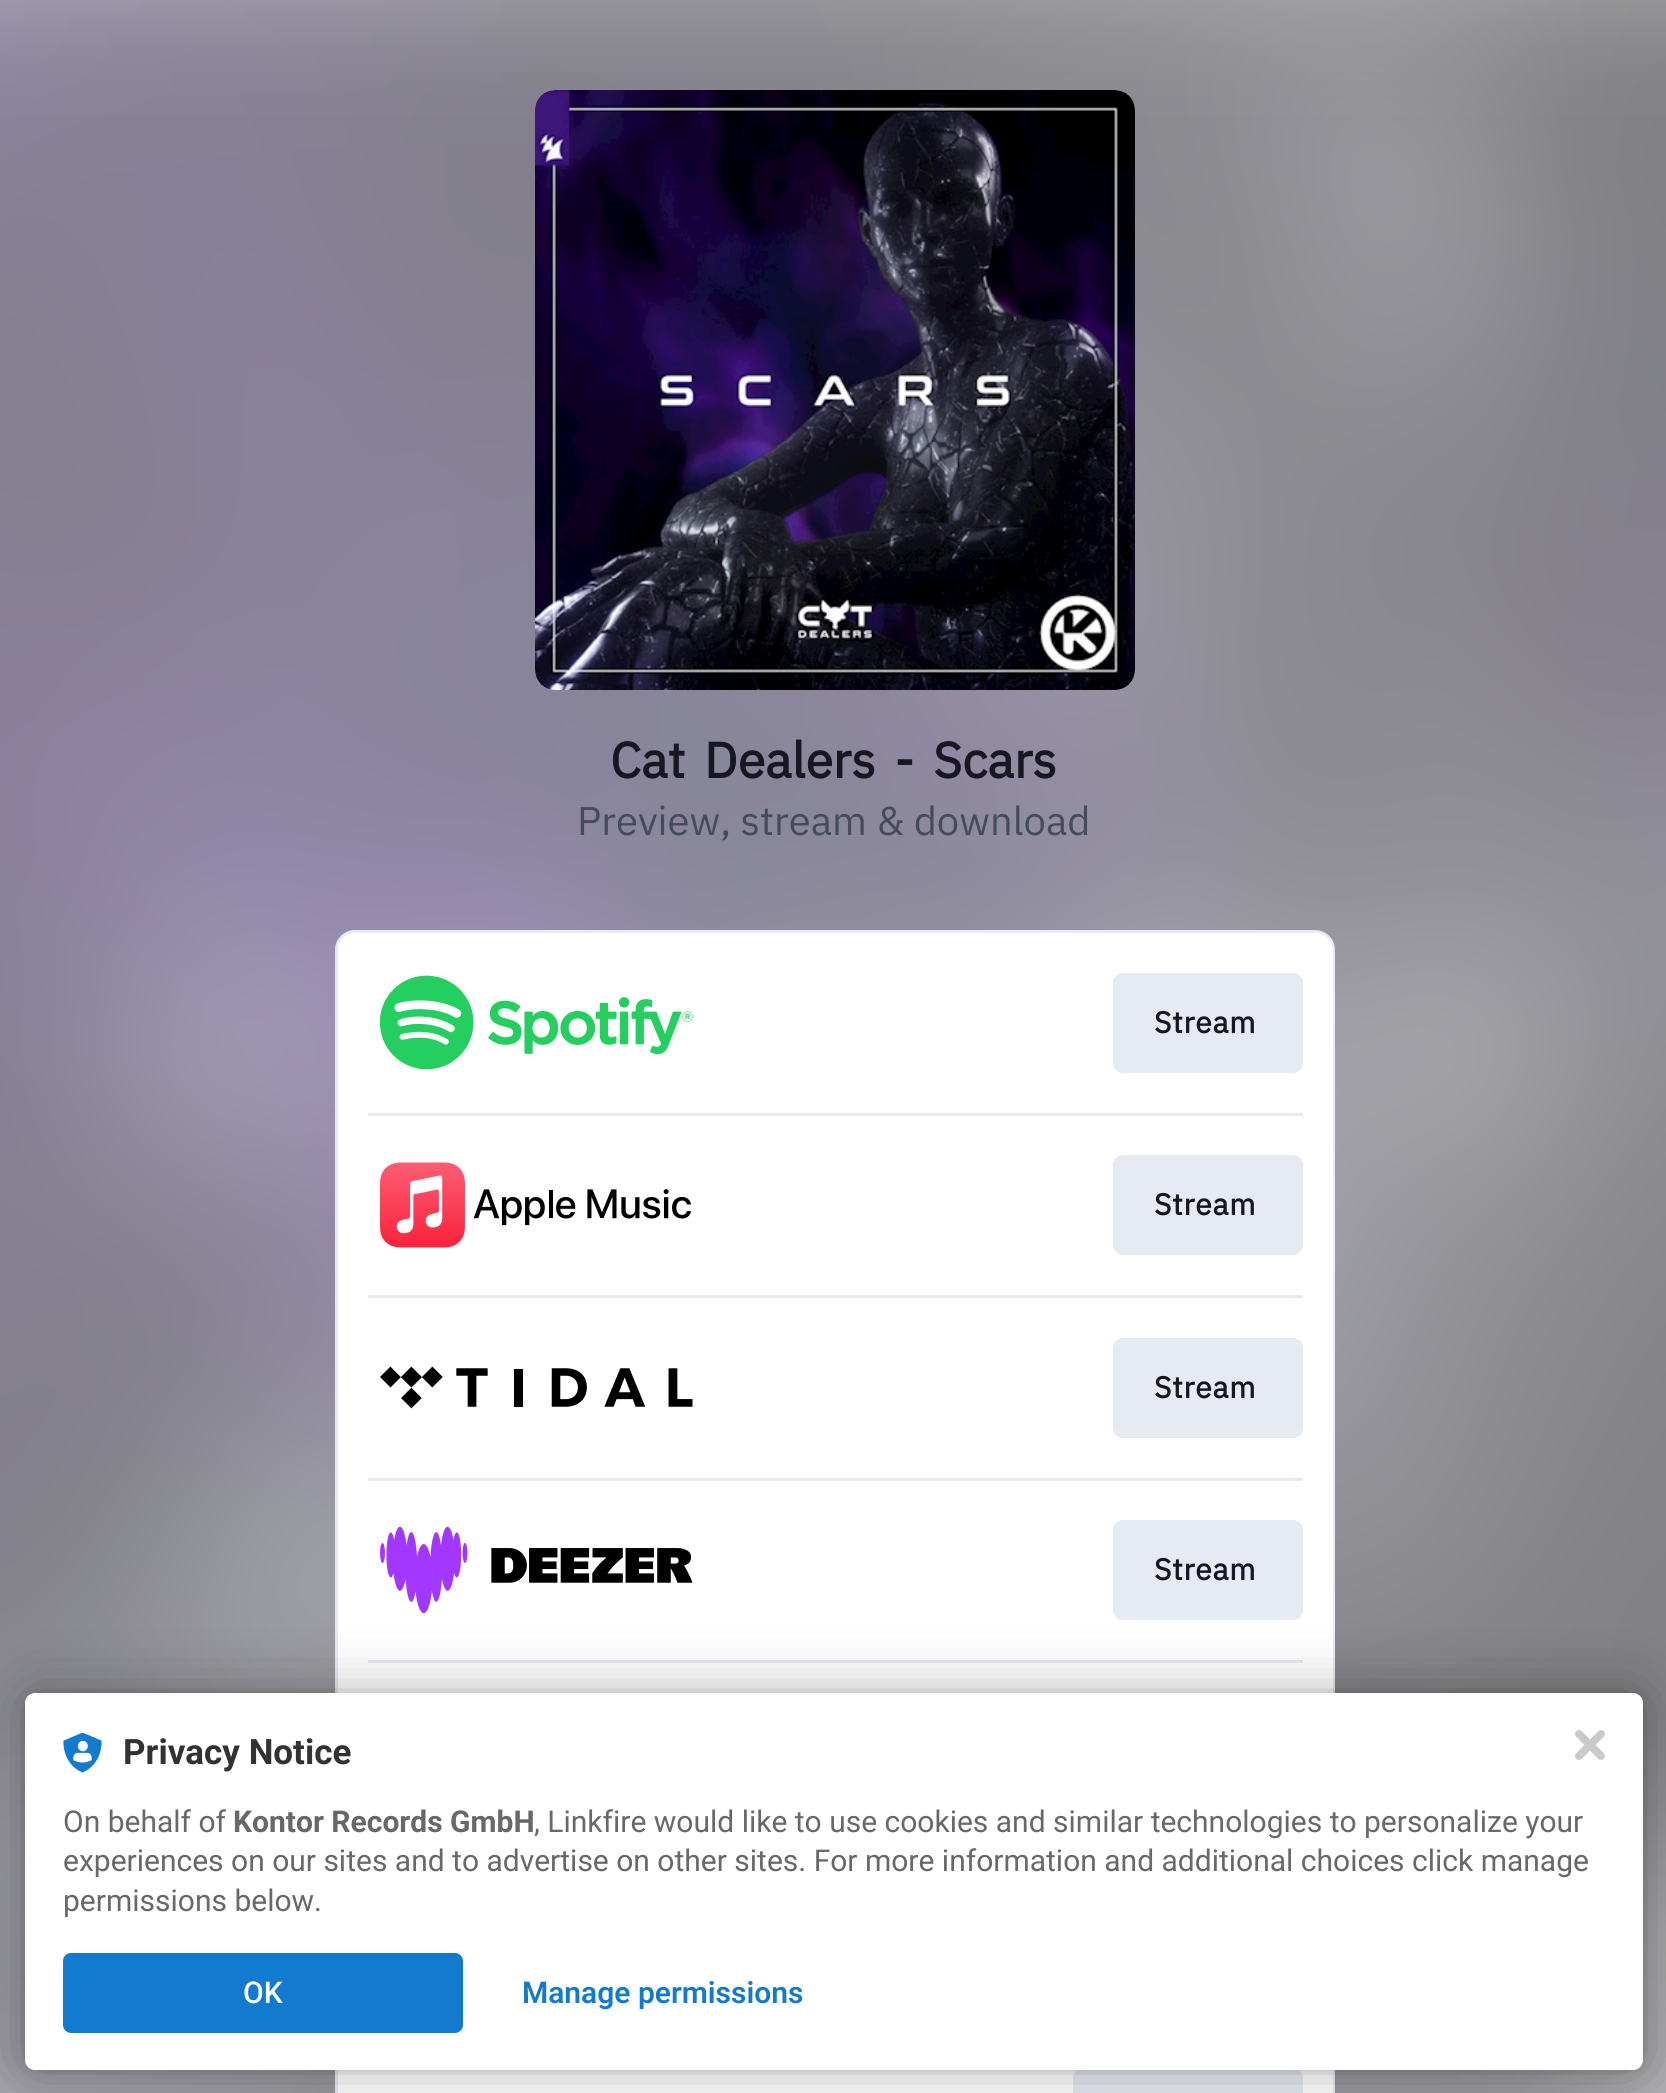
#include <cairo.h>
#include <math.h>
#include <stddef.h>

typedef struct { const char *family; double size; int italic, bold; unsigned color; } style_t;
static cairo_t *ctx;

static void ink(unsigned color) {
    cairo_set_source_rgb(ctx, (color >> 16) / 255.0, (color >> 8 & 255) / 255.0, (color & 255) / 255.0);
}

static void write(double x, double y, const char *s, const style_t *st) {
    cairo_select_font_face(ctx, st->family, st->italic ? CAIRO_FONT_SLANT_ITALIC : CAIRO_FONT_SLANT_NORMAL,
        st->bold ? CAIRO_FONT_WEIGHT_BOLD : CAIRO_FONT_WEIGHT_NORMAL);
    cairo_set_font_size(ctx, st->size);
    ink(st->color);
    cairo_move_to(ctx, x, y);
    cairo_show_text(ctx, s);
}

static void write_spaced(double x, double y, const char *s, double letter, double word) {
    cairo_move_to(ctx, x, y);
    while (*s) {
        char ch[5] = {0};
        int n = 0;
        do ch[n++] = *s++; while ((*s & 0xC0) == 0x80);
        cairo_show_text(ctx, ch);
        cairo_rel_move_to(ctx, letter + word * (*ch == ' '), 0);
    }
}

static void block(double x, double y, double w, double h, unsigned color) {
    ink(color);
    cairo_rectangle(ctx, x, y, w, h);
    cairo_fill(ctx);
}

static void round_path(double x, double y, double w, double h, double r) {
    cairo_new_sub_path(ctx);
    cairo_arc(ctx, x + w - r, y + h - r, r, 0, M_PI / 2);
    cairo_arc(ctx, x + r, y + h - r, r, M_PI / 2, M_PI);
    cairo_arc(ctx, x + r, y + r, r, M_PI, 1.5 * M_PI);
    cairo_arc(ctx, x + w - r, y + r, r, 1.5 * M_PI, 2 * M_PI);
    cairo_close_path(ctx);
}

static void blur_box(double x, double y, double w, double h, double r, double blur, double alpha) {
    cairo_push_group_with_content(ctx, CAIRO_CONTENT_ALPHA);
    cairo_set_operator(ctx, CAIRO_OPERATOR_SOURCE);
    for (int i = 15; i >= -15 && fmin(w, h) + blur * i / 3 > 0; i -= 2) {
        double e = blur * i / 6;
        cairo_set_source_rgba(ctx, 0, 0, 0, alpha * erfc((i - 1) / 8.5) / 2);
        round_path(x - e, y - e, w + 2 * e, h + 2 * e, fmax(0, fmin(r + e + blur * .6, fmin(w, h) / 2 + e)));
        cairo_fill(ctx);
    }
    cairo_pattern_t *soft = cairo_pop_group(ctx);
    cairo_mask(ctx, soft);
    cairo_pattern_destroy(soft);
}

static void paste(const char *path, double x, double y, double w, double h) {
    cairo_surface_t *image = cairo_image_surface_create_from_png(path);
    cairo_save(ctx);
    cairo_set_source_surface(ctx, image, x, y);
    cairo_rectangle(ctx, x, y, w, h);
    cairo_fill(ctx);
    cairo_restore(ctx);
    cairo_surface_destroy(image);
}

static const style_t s1 = {"IBM Plex Sans", 40, 0, 0, 0x454b5f};
static const style_t s2 = {"Roboto", 35, 0, 1, 0x323232};
static const style_t s3 = {"Roboto", 30, 0, 0, 0x686868};
static const style_t s4 = {"Roboto", 30, 0, 1, 0x686868};
static const style_t s5 = {"Roboto Medium", 30, 0, 0, 0xffffff};
static const style_t s6 = {"Roboto SemiBold", 30, 0, 0, 0x137bcf};

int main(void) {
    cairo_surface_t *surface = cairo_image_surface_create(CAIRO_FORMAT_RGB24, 1666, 2093);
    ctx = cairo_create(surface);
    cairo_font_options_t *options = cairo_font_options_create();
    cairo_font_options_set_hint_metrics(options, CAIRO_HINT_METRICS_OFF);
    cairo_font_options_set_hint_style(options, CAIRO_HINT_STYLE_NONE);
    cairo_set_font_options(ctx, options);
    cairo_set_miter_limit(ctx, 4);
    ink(0xffffff);
    cairo_paint(ctx);
    paste("pic1.png", 0, 0, 1666, 2093);
    paste("pic2.png", 535, 90, 600, 600);
    cairo_select_font_face(ctx, "IBM Plex Sans", CAIRO_FONT_SLANT_NORMAL, CAIRO_FONT_WEIGHT_BOLD);
    cairo_set_font_size(ctx, 50);
    ink(0x181721);
    write_spaced(610, 778, "Cat Dealers - Scars", 0, 7);
    write(577, 835, "Preview, stream & download", &s1);
    ink(0xffffff);
    round_path(336.5, 931.5, 997, 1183, 18.5);
    cairo_fill_preserve(ctx);
    ink(0xe6eaf2);
    cairo_set_line_width(ctx, 3);
    cairo_stroke(ctx);
    ink(0xffffff);
    round_path(338, 933, 995, 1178, 18);
    cairo_fill(ctx);
    paste("pic3.png", 380, 975, 313, 95);
    ink(0xe6eaf2);
    round_path(1113, 973, 190, 100, 10);
    cairo_fill(ctx);
    cairo_select_font_face(ctx, "IBM Plex Sans", CAIRO_FONT_SLANT_NORMAL, CAIRO_FONT_WEIGHT_BOLD);
    cairo_set_font_size(ctx, 30);
    ink(0x181721);
    write_spaced(1154, 1033, "Stream", 0.75, 0);
    block(368, 1113, 935, 3, 0xe6eaf2);
    paste("pic4.png", 380, 1162, 311, 86);
    round_path(1113, 1155, 190, 100, 10);
    cairo_fill(ctx);
    ink(0x181721);
    write_spaced(1154, 1215, "Stream", 0.75, 0);
    block(368, 1295, 935, 3, 0xe6eaf2);
    paste("pic5.png", 380, 1366, 313, 43);
    round_path(1113, 1338, 190, 100, 10);
    cairo_fill(ctx);
    ink(0x181721);
    write_spaced(1154, 1398, "Stream", 0.75, 0);
    block(368, 1478, 935, 3, 0xe6eaf2);
    paste("pic6.png", 380, 1526, 313, 88);
    round_path(1113, 1520, 190, 100, 10);
    cairo_fill(ctx);
    ink(0x181721);
    write_spaced(1154, 1580, "Stream", 0.75, 0);
    block(368, 1660, 935, 3, 0xe6eaf2);
    round_path(1073, 2068, 230, 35, 10);
    cairo_fill(ctx);
    ink(0x000000);
    blur_box(25, 1693, 1618, 377, 10, 5, 0.12);
    blur_box(25, 1693, 1618, 377, 10, 30, 0.3);
    ink(0xffffff);
    round_path(25, 1693, 1618, 377, 10);
    cairo_fill(ctx);
    paste("pic7.png", 63, 1733, 39, 40);
    write(123, 1764, "Privacy Notice", &s2);
    write(63, 1832, "On behalf of", &s3);
    write(233, 1832, "Kontor Records GmbH", &s4);
    write(534, 1832, ", Linkfire would like to use cookies and similar technologies to personalize your", &s3);
    write(63, 1871, "experiences on our sites and to advertise on other sites. For more information and additional choices click manage", &s3);
    write(63, 1911, "permissions below.", &s3);
    ink(0x137bcf);
    round_path(63, 1953, 400, 80, 8);
    cairo_fill(ctx);
    write(243, 2003, "OK", &s5);
    write(522, 2003, "Manage permissions", &s6);
    paste("pic8.png", 1575, 1730, 30, 30);
    cairo_surface_write_to_png(surface, "screenshot.png");
    cairo_font_options_destroy(options);
    cairo_destroy(ctx);
    cairo_surface_destroy(surface);
    return 0;
}
